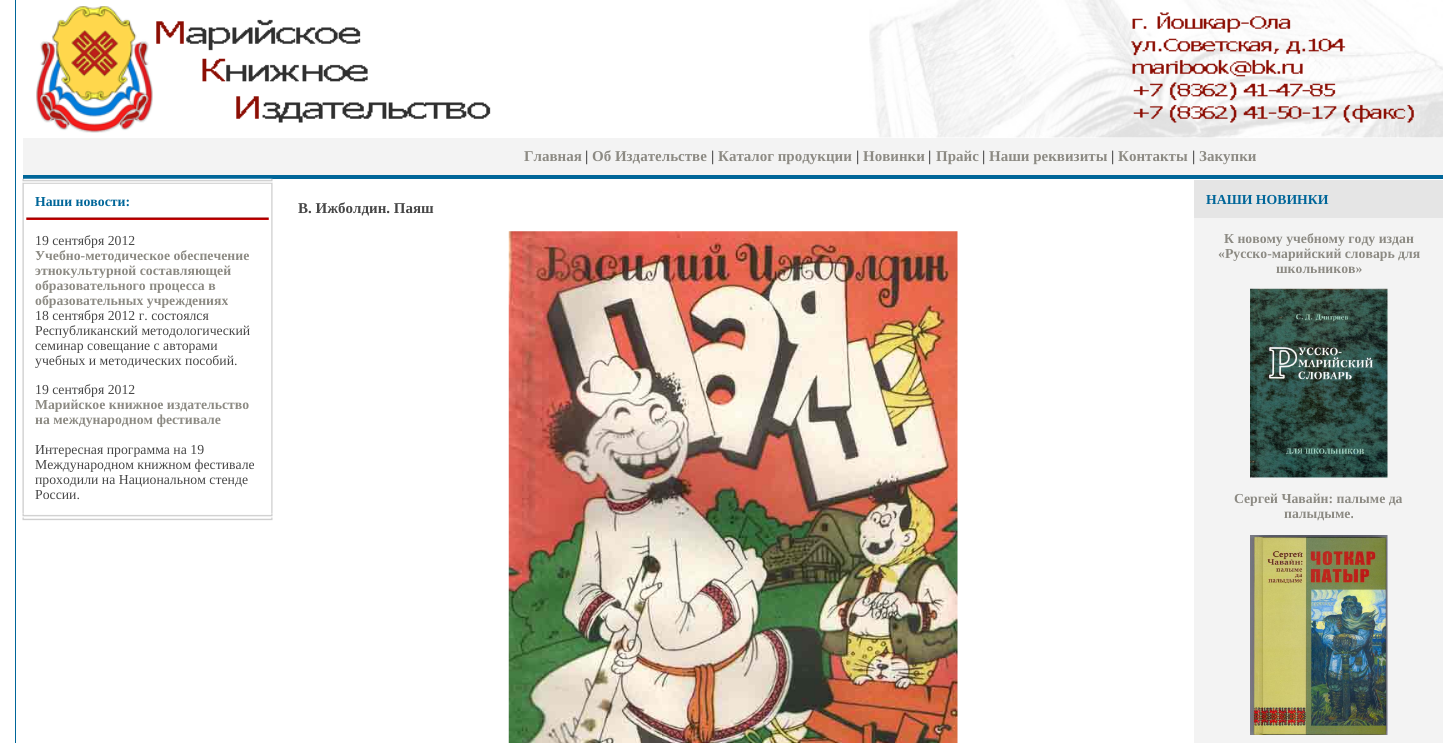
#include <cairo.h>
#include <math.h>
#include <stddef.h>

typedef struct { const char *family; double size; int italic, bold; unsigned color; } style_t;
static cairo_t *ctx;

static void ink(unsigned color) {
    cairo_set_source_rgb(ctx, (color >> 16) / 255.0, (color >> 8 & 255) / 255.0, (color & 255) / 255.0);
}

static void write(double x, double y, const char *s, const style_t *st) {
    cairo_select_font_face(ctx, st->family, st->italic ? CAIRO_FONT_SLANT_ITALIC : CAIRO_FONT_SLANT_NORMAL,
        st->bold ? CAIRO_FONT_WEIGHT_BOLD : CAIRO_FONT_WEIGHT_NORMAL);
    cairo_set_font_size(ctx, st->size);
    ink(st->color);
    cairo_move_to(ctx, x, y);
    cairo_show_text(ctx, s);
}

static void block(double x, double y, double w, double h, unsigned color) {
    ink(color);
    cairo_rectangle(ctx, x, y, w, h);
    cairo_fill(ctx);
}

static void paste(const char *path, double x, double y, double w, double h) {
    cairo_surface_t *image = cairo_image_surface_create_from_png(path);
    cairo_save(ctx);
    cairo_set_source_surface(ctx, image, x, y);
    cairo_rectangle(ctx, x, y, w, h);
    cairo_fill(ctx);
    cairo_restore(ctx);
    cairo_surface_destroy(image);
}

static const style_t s1 = {"Liberation Serif", 15, 0, 1, 0x8c8a83};
static const style_t s2 = {"Liberation Serif", 15, 0, 1, 0x464646};
static const style_t s3 = {"Liberation Serif", 13.75, 0, 1, 0x006699};
static const style_t s4 = {"Liberation Serif", 13.75, 0, 0, 0x464646};
static const style_t s5 = {"Liberation Serif", 13.75, 0, 1, 0x8c8a83};

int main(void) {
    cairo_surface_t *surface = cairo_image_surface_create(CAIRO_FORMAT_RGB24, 1443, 743);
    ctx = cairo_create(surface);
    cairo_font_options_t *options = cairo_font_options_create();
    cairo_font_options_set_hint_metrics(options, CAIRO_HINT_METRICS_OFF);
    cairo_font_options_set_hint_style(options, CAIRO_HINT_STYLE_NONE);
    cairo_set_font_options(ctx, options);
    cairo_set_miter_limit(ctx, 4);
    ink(0xffffff);
    cairo_paint(ctx);
    block(15, 0, 1, 743, 0x006699);
    paste("pic1.png", 869, 0, 574, 138);
    paste("pic2.png", 36, 6, 455, 127);
    block(23, 138, 1420, 37, 0xf3f3f3);
    write(524, 161, "Главная", &s1);
    write(585, 161, "|", &s2);
    write(592, 161, "Об Издательстве", &s1);
    write(711, 161, "|", &s2);
    write(718, 161, "Каталог продукции", &s1);
    write(856, 161, "|", &s2);
    write(863, 161, "Новинки", &s1);
    write(928, 161, "|", &s2);
    write(936, 161, "Прайс", &s1);
    write(982, 161, "|", &s2);
    write(989, 161, "Наши реквизиты", &s1);
    write(1111, 161, "|", &s2);
    write(1118, 161, "Контакты", &s1);
    write(1192, 161, "|", &s2);
    write(1199, 161, "Закупки", &s1);
    block(23, 175, 1420, 4, 0x006699);
    paste("pic4.png", 22, 182, 251, 38);
    paste("pic3.png", 22, 178, 251, 5);
    write(35, 206, "Наши новости:", &s3);
    paste("pic5.png", 22, 220, 251, 294);
    write(35, 245, "19 сентября 2012", &s4);
    write(35, 260, "Учебно-методическое обеспечение", &s5);
    write(35, 275, "этнокультурной составляющей", &s5);
    write(35, 290, "образовательного процесса в", &s5);
    write(35, 305, "образовательных учреждениях", &s5);
    write(35, 320, "18 сентября 2012 г. состоялся", &s4);
    write(35, 335, "Республиканский методологический", &s4);
    write(35, 350, "семинар совещание с авторами", &s4);
    write(35, 365, "учебных и методических пособий.", &s4);
    write(35, 394, "19 сентября 2012", &s4);
    write(35, 409, "Марийское книжное издательство", &s5);
    write(35, 424, "на международном фестивале", &s5);
    write(35, 454, "Интересная программа на 19", &s4);
    write(35, 469, "Международном книжном фестивале", &s4);
    write(35, 484, "проходили на Национальном стенде", &s4);
    write(35, 499, "России.", &s4);
    paste("pic6.png", 22, 514, 251, 3);
    paste("pic7.png", 22, 517, 251, 4);
    write(298, 213, "В. Ижболдин. Паяш", &s2);
    paste("pic8.png", 508, 231, 450, 512);
    block(1194, 180, 249, 38, 0xe5e5e5);
    write(1206, 204, "НАШИ НОВИНКИ", &s3);
    block(1194, 218, 249, 525, 0xf3f3f3);
    write(1224, 243, "К новому учебному году издан", &s5);
    write(1218, 258, "«Русско-марийский словарь для", &s5);
    write(1276, 273, "школьников»", &s5);
    paste("pic9.png", 1250, 288, 138, 190);
    write(1234, 503, "Сергей Чавайн: палыме да", &s5);
    write(1284, 518, "палыдыме.", &s5);
    paste("pic10.png", 1250, 535, 138, 200);
    cairo_surface_write_to_png(surface, "screenshot.png");
    cairo_font_options_destroy(options);
    cairo_destroy(ctx);
    cairo_surface_destroy(surface);
    return 0;
}
